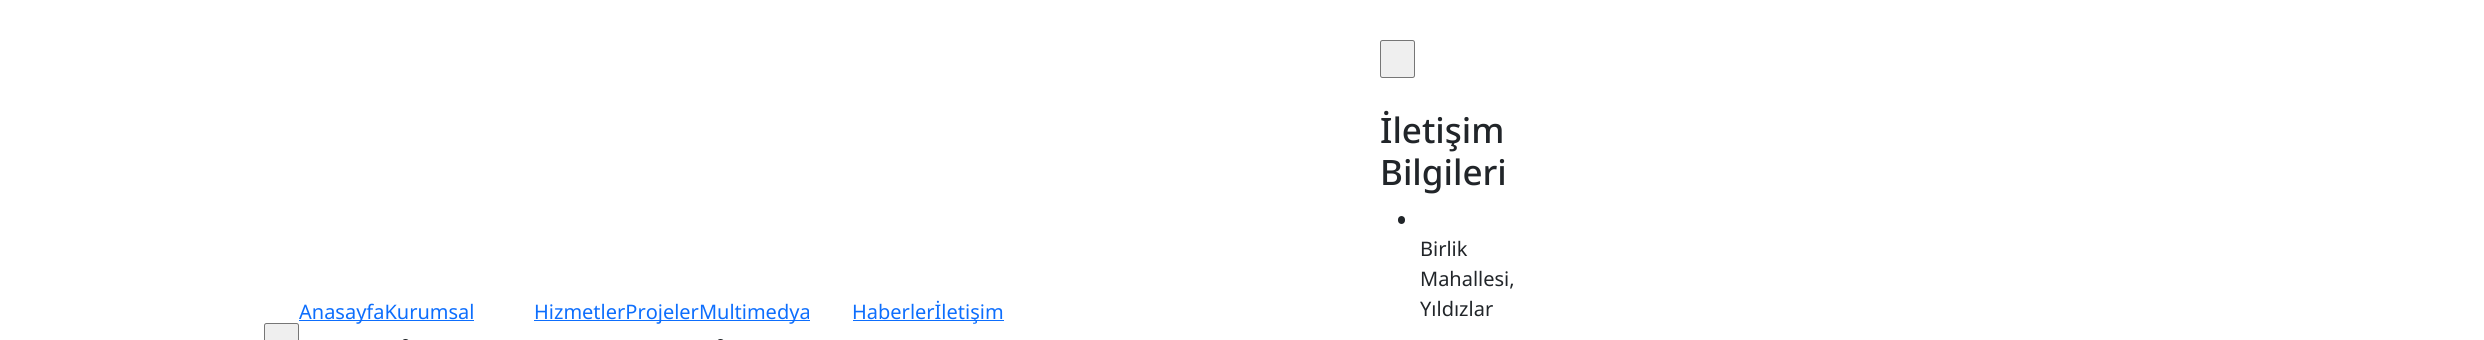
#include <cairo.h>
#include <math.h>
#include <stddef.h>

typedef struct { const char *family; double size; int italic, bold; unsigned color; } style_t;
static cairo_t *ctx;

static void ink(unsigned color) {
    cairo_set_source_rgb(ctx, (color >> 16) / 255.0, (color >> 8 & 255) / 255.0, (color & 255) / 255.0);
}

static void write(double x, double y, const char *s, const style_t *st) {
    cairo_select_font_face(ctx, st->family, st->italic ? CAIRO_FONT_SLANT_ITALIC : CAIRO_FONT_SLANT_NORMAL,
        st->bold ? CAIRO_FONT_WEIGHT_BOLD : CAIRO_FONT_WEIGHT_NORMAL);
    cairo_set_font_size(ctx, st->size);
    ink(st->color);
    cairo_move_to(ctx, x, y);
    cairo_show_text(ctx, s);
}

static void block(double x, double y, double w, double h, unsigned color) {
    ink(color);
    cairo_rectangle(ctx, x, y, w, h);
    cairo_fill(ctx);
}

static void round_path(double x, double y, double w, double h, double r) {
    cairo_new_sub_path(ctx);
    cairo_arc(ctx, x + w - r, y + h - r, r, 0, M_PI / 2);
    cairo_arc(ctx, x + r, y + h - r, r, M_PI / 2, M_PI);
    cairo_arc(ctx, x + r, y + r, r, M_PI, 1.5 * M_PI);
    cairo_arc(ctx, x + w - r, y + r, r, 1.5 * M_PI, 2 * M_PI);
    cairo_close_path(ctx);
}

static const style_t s1 = {"Noto Sans", 20, 0, 0, 0x0d6efd};
static const style_t s2 = {"Noto Sans Medium", 35, 0, 0, 0x212529};
static const style_t s3 = {"Noto Sans", 20, 0, 0, 0x212529};

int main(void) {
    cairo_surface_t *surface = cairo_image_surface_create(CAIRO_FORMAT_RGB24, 2484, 340);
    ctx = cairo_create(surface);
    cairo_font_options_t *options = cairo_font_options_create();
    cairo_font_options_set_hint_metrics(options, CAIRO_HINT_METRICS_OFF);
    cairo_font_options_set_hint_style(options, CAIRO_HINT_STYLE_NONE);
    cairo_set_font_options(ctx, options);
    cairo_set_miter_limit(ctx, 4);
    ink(0xffffff);
    cairo_paint(ctx);
    block(299, 320, 175, 1, 0x0d6efd);
    ink(0xefefef);
    round_path(264.5, 323.5, 34, 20, 2);
    cairo_fill_preserve(ctx);
    ink(0x767676);
    cairo_set_line_width(ctx, 1);
    cairo_stroke(ctx);
    write(299, 319, "AnasayfaKurumsal", &s1);
    block(534, 320, 276, 1, 0x0d6efd);
    write(534, 319, "HizmetlerProjelerMultimedya", &s1);
    block(853, 320, 151, 1, 0x0d6efd);
    write(852, 319, "Haberlerİletişim", &s1);
    round_path(401.5, 339.5, 8, 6, 4);
    ink(0x212529);
    cairo_stroke(ctx);
    round_path(716.5, 339.5, 8, 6, 4);
    cairo_stroke(ctx);
    ink(0xefefef);
    round_path(1380.5, 40.5, 34, 37, 2);
    cairo_fill_preserve(ctx);
    ink(0x767676);
    cairo_stroke(ctx);
    write(1380, 143, "İletişim", &s2);
    write(1380, 185, "Bilgileri", &s2);
    round_path(1398, 216, 7, 8, 3.5);
    cairo_fill(ctx);
    write(1420, 256, "Birlik", &s3);
    write(1420, 286, "Mahallesi,", &s3);
    write(1420, 316, "Yıldızlar", &s3);
    cairo_surface_write_to_png(surface, "screenshot.png");
    cairo_font_options_destroy(options);
    cairo_destroy(ctx);
    cairo_surface_destroy(surface);
    return 0;
}
